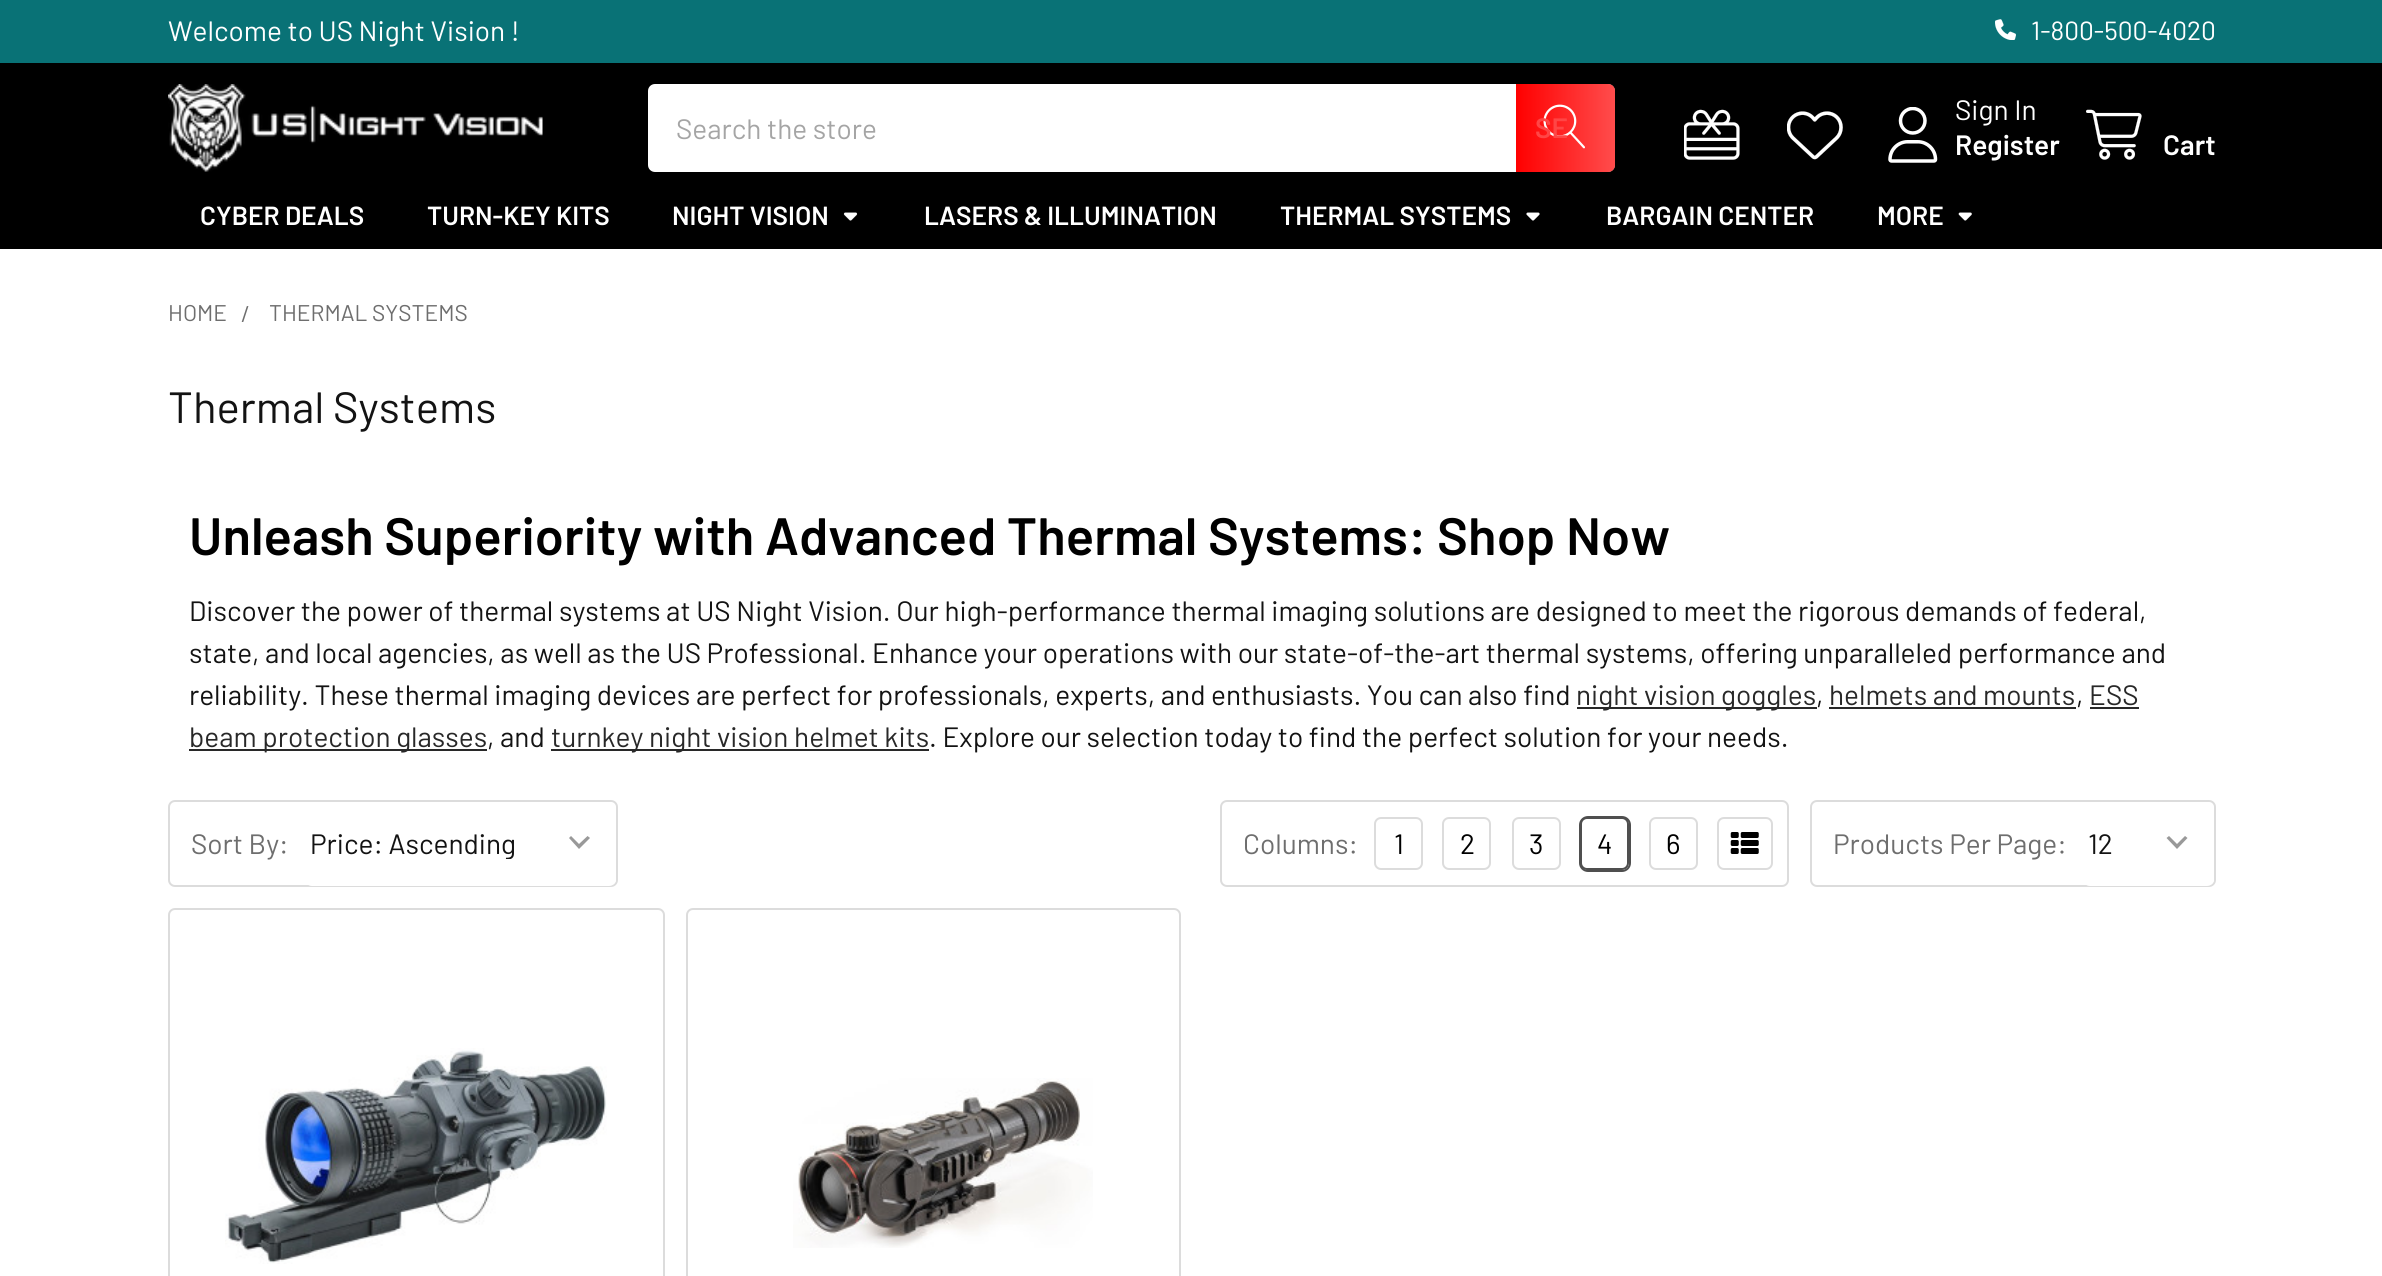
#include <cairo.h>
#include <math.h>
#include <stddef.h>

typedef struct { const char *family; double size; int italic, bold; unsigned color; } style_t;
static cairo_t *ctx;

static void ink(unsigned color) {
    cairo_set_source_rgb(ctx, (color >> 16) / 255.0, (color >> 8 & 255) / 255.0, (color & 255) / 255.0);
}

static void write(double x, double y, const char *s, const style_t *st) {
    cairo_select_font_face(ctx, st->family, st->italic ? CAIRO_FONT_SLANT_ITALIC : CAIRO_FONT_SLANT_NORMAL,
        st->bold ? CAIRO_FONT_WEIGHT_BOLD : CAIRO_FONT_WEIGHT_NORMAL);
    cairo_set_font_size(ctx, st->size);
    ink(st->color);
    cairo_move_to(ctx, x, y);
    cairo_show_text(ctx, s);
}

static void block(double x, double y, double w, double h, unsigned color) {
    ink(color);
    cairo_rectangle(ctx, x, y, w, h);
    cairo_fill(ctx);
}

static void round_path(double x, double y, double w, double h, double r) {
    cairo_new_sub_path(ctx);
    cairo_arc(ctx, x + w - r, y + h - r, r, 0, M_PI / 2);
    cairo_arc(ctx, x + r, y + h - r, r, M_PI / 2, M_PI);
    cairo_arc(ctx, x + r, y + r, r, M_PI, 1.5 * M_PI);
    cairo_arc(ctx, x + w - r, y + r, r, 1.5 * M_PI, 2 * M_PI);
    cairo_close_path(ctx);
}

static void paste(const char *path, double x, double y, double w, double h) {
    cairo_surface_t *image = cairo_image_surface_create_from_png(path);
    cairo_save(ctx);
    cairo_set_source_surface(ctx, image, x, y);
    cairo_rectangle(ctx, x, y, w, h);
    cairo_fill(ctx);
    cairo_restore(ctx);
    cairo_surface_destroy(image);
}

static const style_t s1 = {"Barlow", 28, 0, 0, 0xffffff};
static const style_t s2 = {"Barlow", 26.25, 0, 0, 0xffffff};
static const style_t s3 = {"Barlow", 28, 0, 0, 0xa5a5a5};
static const style_t s4 = {"Barlow SemiBold", 28, 0, 0, 0xff4646};
static const style_t s5 = {"Barlow SemiBold", 28, 0, 0, 0xffffff};
static const style_t s6 = {"Barlow SemiBold", 26.25, 0, 0, 0xffffff};
static const style_t s7 = {"Barlow", 22.75, 0, 0, 0x6e6e6e};
static const style_t s8 = {"Barlow", 43.75, 0, 0, 0x131313};
static const style_t s9 = {"Barlow SemiBold", 52.5, 0, 0, 0x000000};
static const style_t s10 = {"Barlow", 28, 0, 0, 0x131313};
static const style_t s11 = {"Barlow", 28, 0, 0, 0x282828};
static const style_t s12 = {"Barlow", 28, 0, 0, 0x6e6e6e};
static const style_t s13 = {"Barlow", 28, 0, 0, 0x000000};

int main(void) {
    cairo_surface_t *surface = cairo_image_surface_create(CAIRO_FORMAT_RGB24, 2382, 1276);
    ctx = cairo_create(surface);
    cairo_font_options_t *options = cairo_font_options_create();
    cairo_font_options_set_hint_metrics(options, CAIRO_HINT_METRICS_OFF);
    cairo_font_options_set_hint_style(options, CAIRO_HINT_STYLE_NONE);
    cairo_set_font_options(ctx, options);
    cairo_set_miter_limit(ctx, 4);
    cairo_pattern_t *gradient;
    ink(0xffffff);
    cairo_paint(ctx);
    block(0, 63, 2382, 186, 0x000000);
    block(0, 0, 2382, 63, 0x097276);
    write(168, 41, "Welcome to US Night Vision !", &s1);
    paste("pic1.png", 1995, 19, 21, 21);
    write(2031, 40, "1-800-500-4020", &s2);
    paste("pic2.png", 168, 84, 375, 88);
    round_path(648, 84, 967, 88, 7);
    cairo_fill(ctx);
    gradient = cairo_pattern_create_linear(1516, 128, 1615, 128);
    cairo_pattern_add_color_stop_rgba(gradient, 0, 1, 0, 0, 1);
    cairo_pattern_add_color_stop_rgba(gradient, 1, 1, 0, 0, 0.7);
    cairo_set_source(ctx, gradient);
    cairo_pattern_destroy(gradient);
    cairo_new_path(ctx);
    cairo_move_to(ctx, 1516, 84);
    cairo_line_to(ctx, 1608, 84);
    cairo_curve_to(ctx, 1612, 84, 1615, 87, 1615, 91);
    cairo_line_to(ctx, 1615, 165);
    cairo_curve_to(ctx, 1615, 169, 1612, 172, 1608, 172);
    cairo_line_to(ctx, 1516, 172);
    cairo_close_path(ctx);
    cairo_fill(ctx);
    paste("pic3.png", 1543, 104, 42, 45);
    write(676, 139, "Search the store", &s3);
    write(1535, 138, "SE", &s4);
    paste("pic4.png", 1684, 109, 56, 51);
    paste("pic5.png", 1787, 111, 56, 49);
    paste("pic6.png", 1888, 107, 50, 56);
    write(1955, 120, "Sign In", &s1);
    write(1955, 155, "Register", &s5);
    paste("pic7.png", 2086, 109, 56, 51);
    write(2163, 155, "Cart", &s5);
    write(200, 225, "CYBER DEALS", &s6);
    write(427, 225, "TURN-KEY KITS", &s6);
    write(672, 225, "NIGHT VISION", &s6);
    paste("pic8.png", 843, 212, 15, 9);
    write(924, 225, "LASERS & ILLUMINATION", &s6);
    write(1280, 225, "THERMAL SYSTEMS", &s6);
    paste("pic9.png", 1526, 212, 14, 9);
    write(1606, 225, "BARGAIN CENTER", &s6);
    write(1877, 225, "MORE", &s6);
    paste("pic10.png", 1958, 212, 14, 9);
    write(168, 321, "HOME", &s7);
    write(241, 322, "/", &s7);
    write(269, 321, "THERMAL SYSTEMS", &s7);
    write(168, 423, "Thermal Systems", &s8);
    write(189, 555, "Unleash Superiority with Advanced Thermal Systems: Shop Now", &s9);
    write(189, 621, "Discover the power of thermal systems at US Night Vision. Our high-performance thermal imaging solutions are designed to meet the rigorous demands of federal,", &s10);
    write(189, 663, "state, and local agencies, as well as the US Professional. Enhance your operations with our state-of-the-art thermal systems, offering unparalleled performance and", &s10);
    write(189, 705, "reliability. These thermal imaging devices are perfect for professionals, experts, and enthusiasts. You can also find", &s10);
    block(1577, 707, 240, 2, 0x282828);
    write(1576, 705, "night vision goggles", &s11);
    write(1816, 705, ",", &s10);
    write(1829, 705, "helmets and mounts", &s11);
    block(1829, 707, 247, 2, 0x282828);
    write(2076, 705, ",", &s10);
    write(2089, 705, "ESS", &s11);
    block(2090, 707, 49, 2, 0x282828);
    block(189, 749, 298, 2, 0x282828);
    write(189, 747, "beam protection glasses", &s11);
    write(487, 747, ", and", &s10);
    block(551, 749, 378, 2, 0x282828);
    write(551, 747, "turnkey night vision helmet kits", &s11);
    write(929, 747, ". Explore our selection today to find the perfect solution for your needs.", &s10);
    round_path(169, 801, 448, 85, 6);
    ink(0xdcdcdc);
    cairo_stroke(ctx);
    write(191, 854, "Sort By:", &s12);
    ink(0xffffff);
    round_path(305, 802, 311, 84, 7);
    cairo_fill(ctx);
    ink(0x999999);
    cairo_new_path(ctx);
    cairo_move_to(ctx, 587.5, 836);
    cairo_line_to(ctx, 579, 844);
    cairo_line_to(ctx, 571, 836);
    cairo_line_to(ctx, 569, 838);
    cairo_line_to(ctx, 579, 849);
    cairo_line_to(ctx, 590, 838);
    cairo_close_path(ctx);
    cairo_fill(ctx);
    cairo_save(ctx);
    cairo_rectangle(ctx, 310, 826, 222, 33);
    cairo_clip(ctx);
    write(310, 854, "Price: Ascending", &s10);
    cairo_restore(ctx);
    round_path(1221, 801, 567, 85, 6);
    ink(0xdcdcdc);
    cairo_stroke(ctx);
    write(1243, 854, "Columns:", &s12);
    round_path(1375, 818, 47, 51, 6);
    ink(0xdcdcdc);
    cairo_stroke(ctx);
    write(1394, 854, "1", &s13);
    round_path(1443, 818, 47, 51, 6);
    ink(0xdcdcdc);
    cairo_stroke(ctx);
    write(1460, 854, "2", &s13);
    round_path(1513, 818, 47, 51, 6);
    ink(0xdcdcdc);
    cairo_stroke(ctx);
    write(1529, 854, "3", &s13);
    round_path(1580, 817, 50, 54, 8);
    ink(0x4f4f4f);
    cairo_stroke(ctx);
    round_path(1581, 818, 47, 51, 6);
    cairo_stroke(ctx);
    write(1597, 854, "4", &s13);
    round_path(1650, 818, 47, 51, 6);
    ink(0xdcdcdc);
    cairo_stroke(ctx);
    write(1666, 854, "6", &s13);
    round_path(1718, 818, 54, 51, 6);
    ink(0xdcdcdc);
    cairo_stroke(ctx);
    paste("pic11.png", 1730, 832, 29, 22);
    round_path(1811, 801, 404, 85, 6);
    cairo_stroke(ctx);
    write(1833, 854, "Products Per Page:", &s12);
    ink(0xffffff);
    round_path(2083, 802, 131, 84, 7);
    cairo_fill(ctx);
    ink(0x999999);
    cairo_new_path(ctx);
    cairo_move_to(ctx, 2185, 836);
    cairo_line_to(ctx, 2177, 844);
    cairo_line_to(ctx, 2169, 836);
    cairo_line_to(ctx, 2166.5, 838);
    cairo_line_to(ctx, 2177, 849);
    cairo_line_to(ctx, 2187.5, 838);
    cairo_close_path(ctx);
    cairo_fill(ctx);
    write(2088, 854, "12", &s10);
    round_path(169, 909, 495, 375, 6);
    ink(0xdcdcdc);
    cairo_stroke(ctx);
    paste("pic12.png", 225, 1048, 382, 216);
    round_path(687, 909, 493, 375, 6);
    cairo_stroke(ctx);
    paste("pic13.png", 793, 1078, 300, 170);
    cairo_surface_write_to_png(surface, "screenshot.png");
    cairo_font_options_destroy(options);
    cairo_destroy(ctx);
    cairo_surface_destroy(surface);
    return 0;
}
